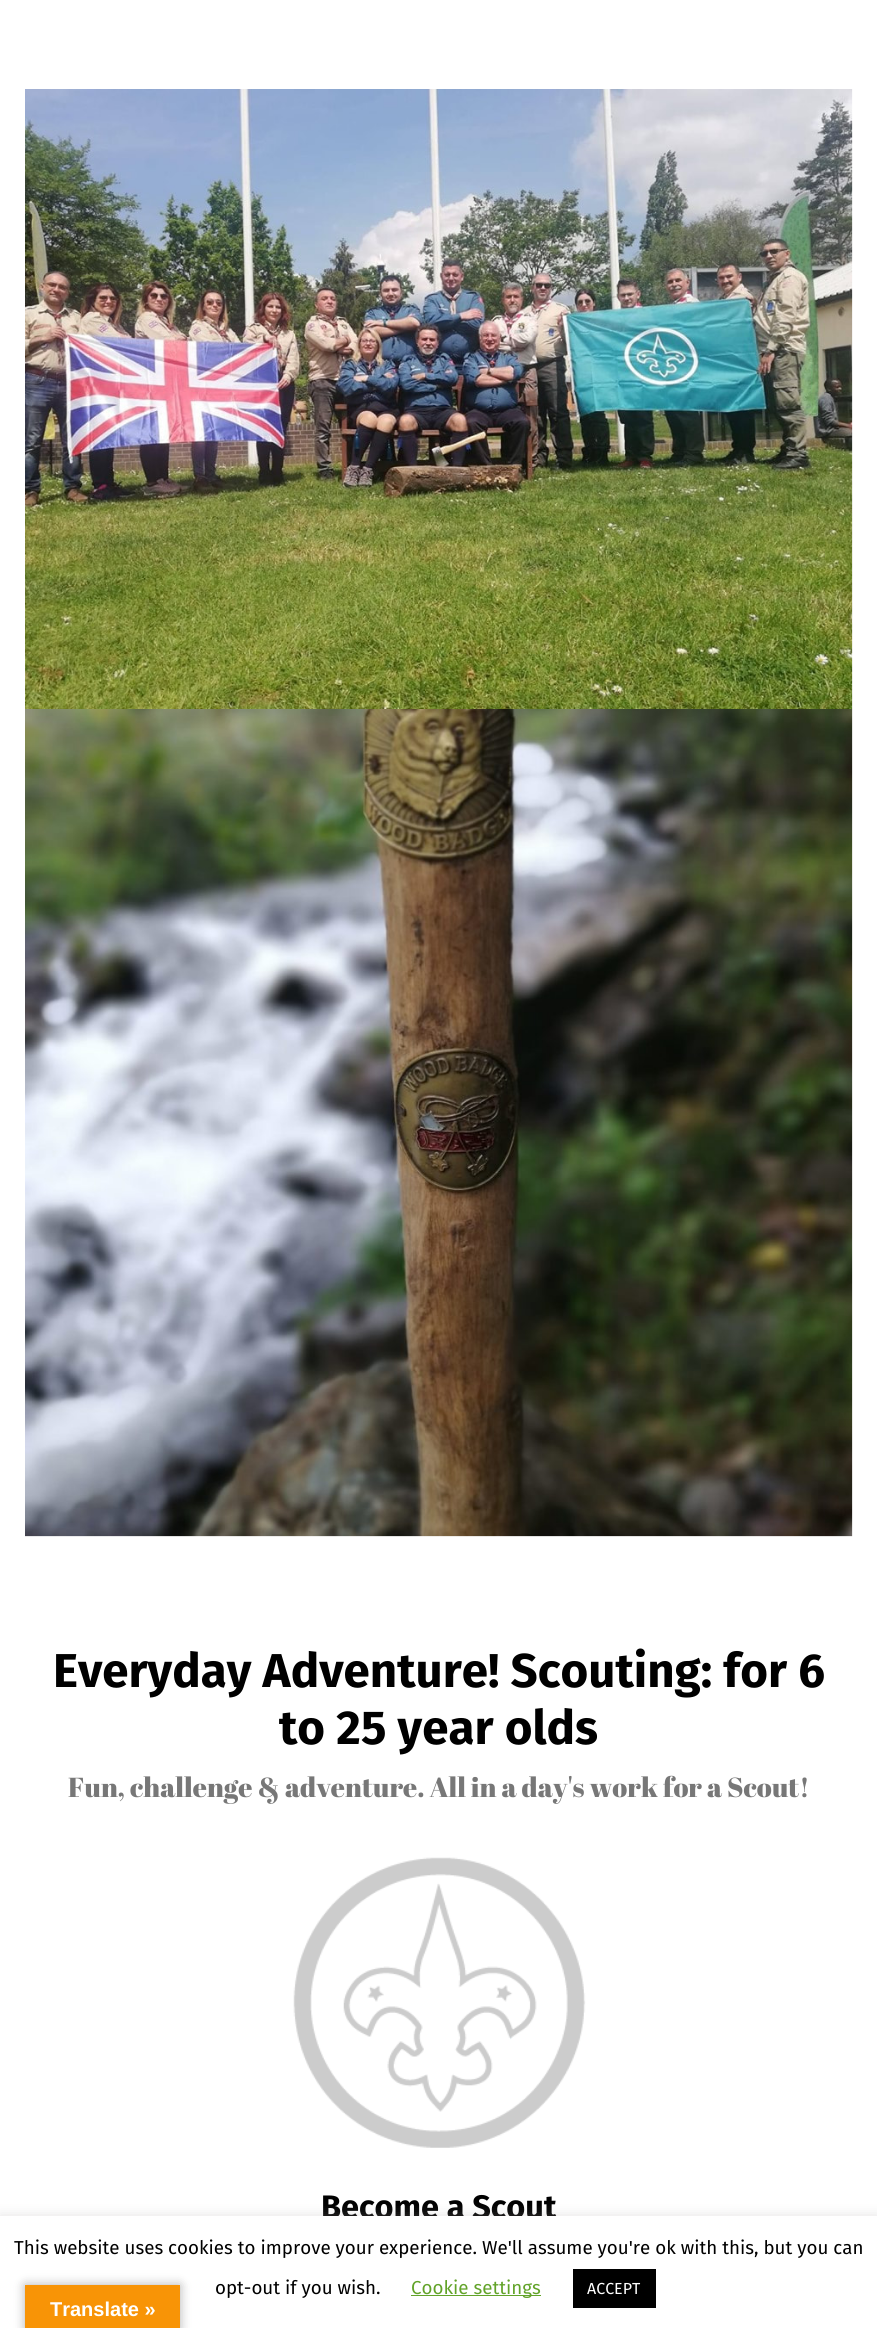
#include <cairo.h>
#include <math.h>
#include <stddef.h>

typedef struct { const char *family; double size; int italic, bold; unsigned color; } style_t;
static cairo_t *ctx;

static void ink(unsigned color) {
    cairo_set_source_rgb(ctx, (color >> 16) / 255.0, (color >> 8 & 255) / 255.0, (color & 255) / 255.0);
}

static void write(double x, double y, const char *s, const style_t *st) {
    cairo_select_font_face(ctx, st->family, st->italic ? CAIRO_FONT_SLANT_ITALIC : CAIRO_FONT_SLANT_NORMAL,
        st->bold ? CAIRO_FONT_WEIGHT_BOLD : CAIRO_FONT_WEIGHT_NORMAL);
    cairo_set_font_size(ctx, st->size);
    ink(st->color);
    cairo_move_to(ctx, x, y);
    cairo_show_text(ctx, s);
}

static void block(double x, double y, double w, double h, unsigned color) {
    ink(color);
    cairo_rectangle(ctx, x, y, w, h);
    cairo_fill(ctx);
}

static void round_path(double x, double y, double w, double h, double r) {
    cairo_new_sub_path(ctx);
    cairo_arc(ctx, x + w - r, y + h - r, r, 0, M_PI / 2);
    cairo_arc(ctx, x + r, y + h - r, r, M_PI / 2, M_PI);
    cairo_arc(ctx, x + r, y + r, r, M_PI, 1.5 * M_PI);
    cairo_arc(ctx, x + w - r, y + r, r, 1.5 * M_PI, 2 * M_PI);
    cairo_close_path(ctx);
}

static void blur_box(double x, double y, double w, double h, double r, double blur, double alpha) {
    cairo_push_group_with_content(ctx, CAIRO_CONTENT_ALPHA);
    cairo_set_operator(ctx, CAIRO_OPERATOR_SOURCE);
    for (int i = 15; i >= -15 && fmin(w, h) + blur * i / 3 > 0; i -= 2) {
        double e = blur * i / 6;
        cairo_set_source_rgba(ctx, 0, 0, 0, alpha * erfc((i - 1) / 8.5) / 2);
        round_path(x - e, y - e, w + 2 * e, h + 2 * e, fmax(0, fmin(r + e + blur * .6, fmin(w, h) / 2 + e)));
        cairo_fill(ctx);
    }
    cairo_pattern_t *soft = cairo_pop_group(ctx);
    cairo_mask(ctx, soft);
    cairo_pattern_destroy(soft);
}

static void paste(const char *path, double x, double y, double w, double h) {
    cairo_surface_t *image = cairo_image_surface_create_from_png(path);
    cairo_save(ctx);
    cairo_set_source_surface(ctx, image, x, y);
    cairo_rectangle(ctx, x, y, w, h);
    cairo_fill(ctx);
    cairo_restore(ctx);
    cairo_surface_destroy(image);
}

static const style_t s1 = {"Fira Sans", 47.5, 0, 1, 0x000000};
static const style_t s2 = {"Abril Fatface", 27.5, 0, 0, 0x777777};
static const style_t s3 = {"Fira Sans", 32.5, 0, 1, 0x000000};
static const style_t s4 = {"Fira Sans", 18.75, 0, 0, 0x000000};
static const style_t s5 = {"Fira Sans", 18.75, 0, 0, 0x62a329};
static const style_t s6 = {"Fira Sans", 16, 0, 0, 0xffffff};
static const style_t s7 = {"Liberation Sans", 20, 0, 1, 0xffffff};

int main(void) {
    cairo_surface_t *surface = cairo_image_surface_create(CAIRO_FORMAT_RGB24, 877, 2328);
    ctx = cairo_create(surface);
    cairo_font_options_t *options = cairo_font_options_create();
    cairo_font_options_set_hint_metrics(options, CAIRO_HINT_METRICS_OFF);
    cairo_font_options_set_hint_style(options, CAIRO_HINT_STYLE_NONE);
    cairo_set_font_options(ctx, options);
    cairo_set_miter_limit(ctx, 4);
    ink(0xffffff);
    cairo_paint(ctx);
    paste("pic1.png", 25, 89, 828, 620);
    paste("pic2.png", 25, 709, 828, 828);
    write(53, 1687, "Everyday Adventure! Scouting: for 6", &s1);
    write(279, 1744, "to 25 year olds", &s1);
    write(68, 1797, "Fun, challenge & adventure. All in a day's work for a Scout!", &s2);
    paste("pic3.png", 293, 1857, 293, 291);
    write(321, 2218, "Become a Scout", &s3);
    ink(0xacabab);
    blur_box(0, 2215, 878, 113, 0, 6, 0.3);
    block(0, 2216, 877, 112, 0xffffff);
    write(14, 2254, "This website uses cookies to improve your experience. We'll assume you're ok with this, but you can", &s4);
    write(215, 2294, "opt-out if you wish.", &s4);
    block(411, 2295, 130, 1, 0x62a329);
    write(411, 2294, "Cookie settings", &s5);
    block(573, 2269, 83, 39, 0x000000);
    write(587, 2294, "ACCEPT", &s6);
    ink(0x000000);
    blur_box(25, 2285, 155, 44, 0, 5.5, 0.3);
    block(25, 2285, 155, 43, 0xf89406);
    write(50, 2316, "Translate »", &s7);
    cairo_surface_write_to_png(surface, "screenshot.png");
    cairo_font_options_destroy(options);
    cairo_destroy(ctx);
    cairo_surface_destroy(surface);
    return 0;
}
